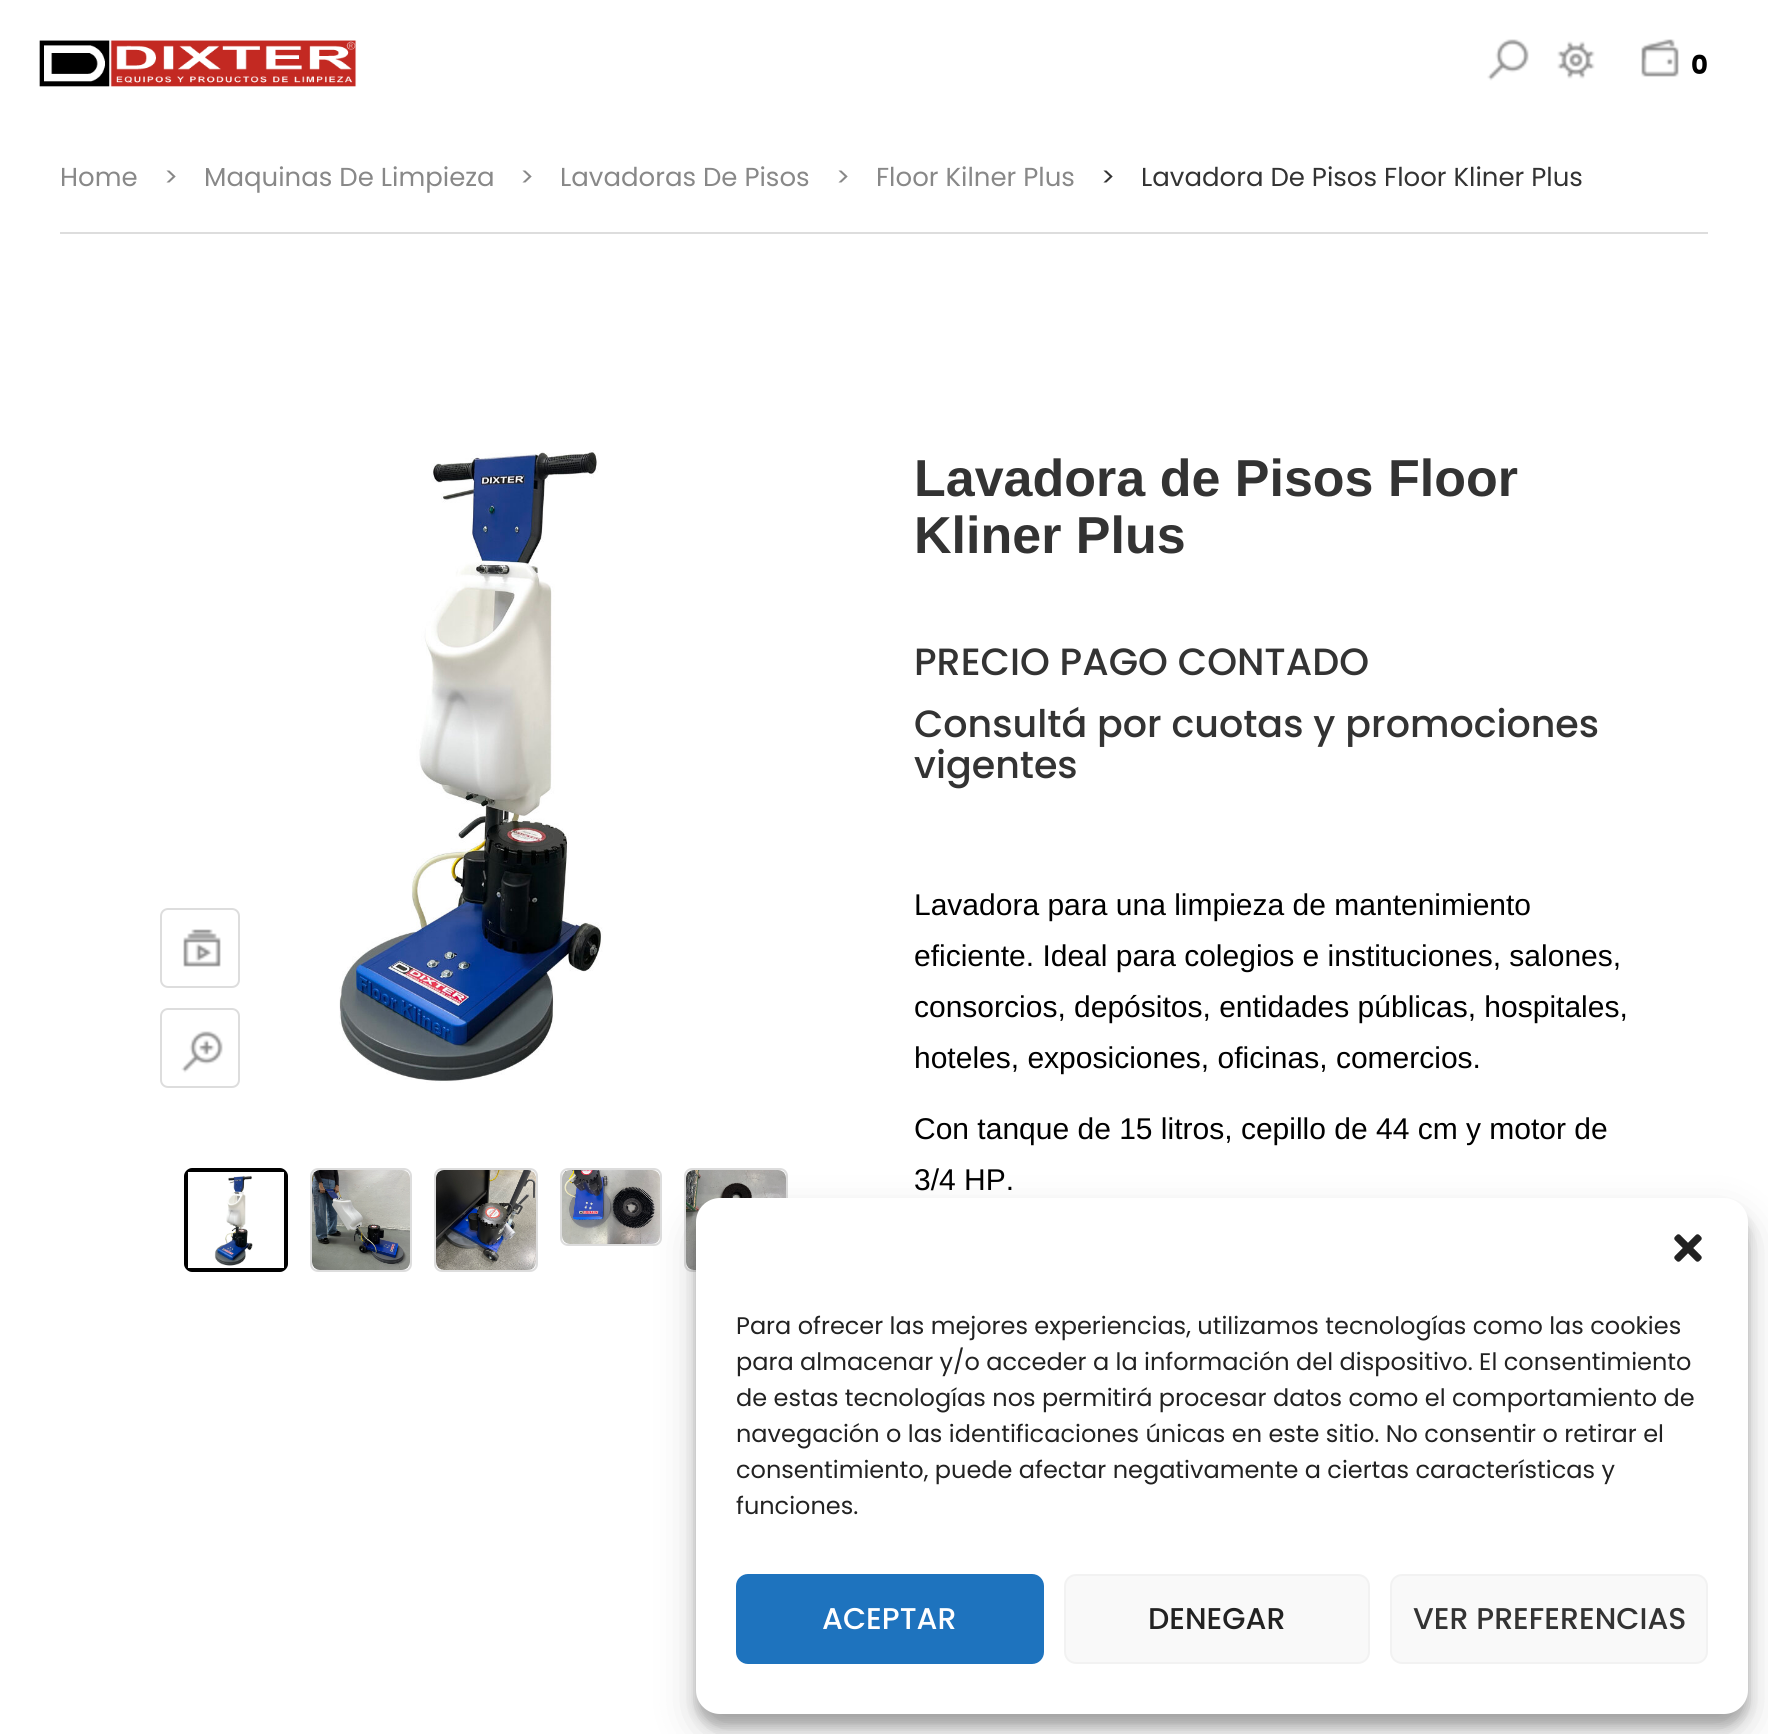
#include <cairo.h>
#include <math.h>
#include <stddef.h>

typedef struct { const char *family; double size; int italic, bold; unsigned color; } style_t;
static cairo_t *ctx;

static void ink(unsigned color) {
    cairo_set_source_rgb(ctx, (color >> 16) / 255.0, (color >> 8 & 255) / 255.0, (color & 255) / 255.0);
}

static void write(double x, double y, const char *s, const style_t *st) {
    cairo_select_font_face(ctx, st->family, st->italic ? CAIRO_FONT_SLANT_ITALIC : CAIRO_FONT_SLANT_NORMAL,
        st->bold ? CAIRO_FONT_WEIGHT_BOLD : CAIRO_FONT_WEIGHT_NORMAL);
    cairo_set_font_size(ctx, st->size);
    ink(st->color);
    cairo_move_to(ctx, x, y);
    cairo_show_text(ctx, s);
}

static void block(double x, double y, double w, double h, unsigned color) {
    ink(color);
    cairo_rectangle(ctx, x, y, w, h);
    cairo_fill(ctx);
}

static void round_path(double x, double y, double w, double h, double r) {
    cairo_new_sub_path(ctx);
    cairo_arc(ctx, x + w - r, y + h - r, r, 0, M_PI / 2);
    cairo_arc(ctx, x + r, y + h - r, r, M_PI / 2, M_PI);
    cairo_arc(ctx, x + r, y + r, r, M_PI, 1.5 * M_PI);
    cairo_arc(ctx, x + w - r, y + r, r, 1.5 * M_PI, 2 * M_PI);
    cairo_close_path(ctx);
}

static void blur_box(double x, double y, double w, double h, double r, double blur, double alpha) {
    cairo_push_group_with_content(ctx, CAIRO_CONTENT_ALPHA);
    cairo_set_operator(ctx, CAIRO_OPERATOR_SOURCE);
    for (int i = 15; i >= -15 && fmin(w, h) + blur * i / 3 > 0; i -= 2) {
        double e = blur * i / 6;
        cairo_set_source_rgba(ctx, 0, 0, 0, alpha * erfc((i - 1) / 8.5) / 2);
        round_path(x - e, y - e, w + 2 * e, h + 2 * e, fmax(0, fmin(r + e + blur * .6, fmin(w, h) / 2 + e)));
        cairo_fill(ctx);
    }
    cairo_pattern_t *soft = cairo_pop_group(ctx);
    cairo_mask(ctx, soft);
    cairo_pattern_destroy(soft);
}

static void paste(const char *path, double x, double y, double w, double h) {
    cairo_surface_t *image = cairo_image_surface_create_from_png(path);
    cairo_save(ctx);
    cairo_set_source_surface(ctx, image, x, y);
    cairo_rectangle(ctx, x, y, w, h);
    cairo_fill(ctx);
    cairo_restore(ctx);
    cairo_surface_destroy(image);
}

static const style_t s1 = {"Poppins", 26, 0, 1, 0x000000};
static const style_t s2 = {"Poppins", 26, 0, 0, 0x888888};
static const style_t s3 = {"Poppins", 26, 0, 0, 0x333333};
static const style_t s4 = {"Liberation Sans", 52, 0, 1, 0x333333};
static const style_t s5 = {"Poppins Medium", 38, 0, 0, 0x333333};
static const style_t s6 = {"Liberation Sans", 30, 0, 0, 0x000000};
static const style_t s7 = {"Poppins", 24, 0, 0, 0x222222};
static const style_t s8 = {"Poppins Medium", 30, 0, 0, 0xffffff};
static const style_t s9 = {"Poppins Medium", 30, 0, 0, 0x222222};
static const style_t s10 = {"Poppins Medium", 30, 0, 0, 0x333333};

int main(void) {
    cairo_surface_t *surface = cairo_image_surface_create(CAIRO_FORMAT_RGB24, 1768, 1734);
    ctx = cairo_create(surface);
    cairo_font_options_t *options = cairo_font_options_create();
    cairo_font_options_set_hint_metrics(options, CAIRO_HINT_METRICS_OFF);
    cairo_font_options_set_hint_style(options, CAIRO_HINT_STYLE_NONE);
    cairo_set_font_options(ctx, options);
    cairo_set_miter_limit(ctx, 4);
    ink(0xffffff);
    cairo_paint(ctx);
    paste("pic1.png", 39, 40, 318, 47);
    paste("pic2.png", 1487, 39, 42, 42);
    paste("pic3.png", 1557, 41, 38, 38);
    paste("pic4.png", 1641, 39, 38, 38);
    write(1691, 74, "0", &s1);
    block(60, 232, 1648, 2, 0xdddddd);
    write(60, 186, "Home", &s2);
    write(164, 186, ">", &s2);
    write(204, 186, "Maquinas De Limpieza", &s2);
    write(520, 186, ">", &s2);
    write(560, 186, "Lavadoras De Pisos", &s2);
    write(836, 186, ">", &s2);
    write(876, 186, "Floor Kilner Plus", &s2);
    write(1101, 186, ">", &s3);
    write(1141, 186, "Lavadora De Pisos Floor Kliner Plus", &s3);
    paste("pic5.png", 183, 929, 38, 38);
    round_path(161, 909, 78, 78, 7);
    ink(0xdddddd);
    cairo_stroke(ctx);
    paste("pic6.png", 181, 1031, 42, 42);
    round_path(161, 1009, 78, 78, 7);
    cairo_stroke(ctx);
    paste("pic7.png", 339, 450, 264, 633);
    paste("pic8.png", 214, 1175, 39, 91);
    ink(0x000000);
    cairo_set_fill_rule(ctx, CAIRO_FILL_RULE_EVEN_ODD);
    cairo_new_path(ctx);
    cairo_move_to(ctx, 192, 1168);
    cairo_curve_to(ctx, 188, 1168, 184, 1172, 184, 1176);
    cairo_line_to(ctx, 184, 1264);
    cairo_curve_to(ctx, 184, 1268, 188, 1272, 192, 1272);
    cairo_line_to(ctx, 280, 1272);
    cairo_curve_to(ctx, 284, 1272, 288, 1268, 288, 1264);
    cairo_line_to(ctx, 288, 1176);
    cairo_curve_to(ctx, 288, 1172, 284, 1168, 280, 1168);
    cairo_close_path(ctx);
    cairo_move_to(ctx, 188, 1172);
    cairo_line_to(ctx, 188, 1268);
    cairo_line_to(ctx, 284, 1268);
    cairo_line_to(ctx, 284, 1172);
    cairo_close_path(ctx);
    cairo_fill(ctx);
    round_path(311, 1169, 100, 102, 7);
    ink(0xdddddd);
    cairo_stroke(ctx);
    paste("pic9.png", 312, 1170, 98, 100);
    round_path(435, 1169, 102, 102, 7);
    cairo_stroke(ctx);
    paste("pic10.png", 436, 1170, 100, 100);
    round_path(561, 1169, 100, 76, 7);
    cairo_stroke(ctx);
    paste("pic11.png", 562, 1170, 98, 74);
    round_path(685, 1169, 102, 102, 7);
    cairo_stroke(ctx);
    paste("pic12.png", 686, 1170, 100, 100);
    write(914, 496, "Lavadora de Pisos Floor", &s4);
    write(914, 553, "Kliner Plus", &s4);
    write(914, 675, "PRECIO PAGO CONTADO", &s5);
    write(914, 737, "Consultá por cuotas y promociones", &s5);
    write(914, 778, "vigentes", &s5);
    write(914, 915, "Lavadora para una limpieza de mantenimiento", &s6);
    write(914, 966, "eficiente. Ideal para colegios e instituciones, salones,", &s6);
    write(914, 1017, "consorcios, depósitos, entidades públicas, hospitales,", &s6);
    write(914, 1068, "hoteles, exposiciones, oficinas, comercios.", &s6);
    write(914, 1139, "Con tanque de 15 litros, cepillo de 44 cm y motor de", &s6);
    write(914, 1190, "3/4 HP.", &s6);
    ink(0x000000);
    blur_box(696, 1210, 1052, 516, 24, 6, 0.23);
    blur_box(696, 1218, 1052, 516, 24, 20, 0.19);
    ink(0xffffff);
    round_path(696, 1198, 1052, 516, 24);
    cairo_fill(ctx);
    paste("pic13.png", 1674, 1234, 28, 28);
    write(736, 1334, "Para ofrecer las mejores experiencias, utilizamos tecnologías como las cookies", &s7);
    write(736, 1370, "para almacenar y/o acceder a la información del dispositivo. El consentimiento", &s7);
    write(736, 1406, "de estas tecnologías nos permitirá procesar datos como el comportamiento de", &s7);
    write(736, 1442, "navegación o las identificaciones únicas en este sitio. No consentir o retirar el", &s7);
    write(736, 1478, "consentimiento, puede afectar negativamente a ciertas características y", &s7);
    write(736, 1514, "funciones.", &s7);
    ink(0x1e73be);
    round_path(737, 1575, 306, 88, 11);
    cairo_fill_preserve(ctx);
    cairo_stroke(ctx);
    write(822, 1629, "ACEPTAR", &s8);
    ink(0xf9f9f9);
    round_path(1065, 1575, 304, 88, 11);
    cairo_fill_preserve(ctx);
    ink(0xf2f2f2);
    cairo_stroke(ctx);
    write(1148, 1629, "DENEGAR", &s9);
    ink(0xf9f9f9);
    round_path(1391, 1575, 316, 88, 11);
    cairo_fill_preserve(ctx);
    ink(0xf2f2f2);
    cairo_stroke(ctx);
    write(1413, 1629, "VER PREFERENCIAS", &s10);
    cairo_surface_write_to_png(surface, "screenshot.png");
    cairo_font_options_destroy(options);
    cairo_destroy(ctx);
    cairo_surface_destroy(surface);
    return 0;
}
